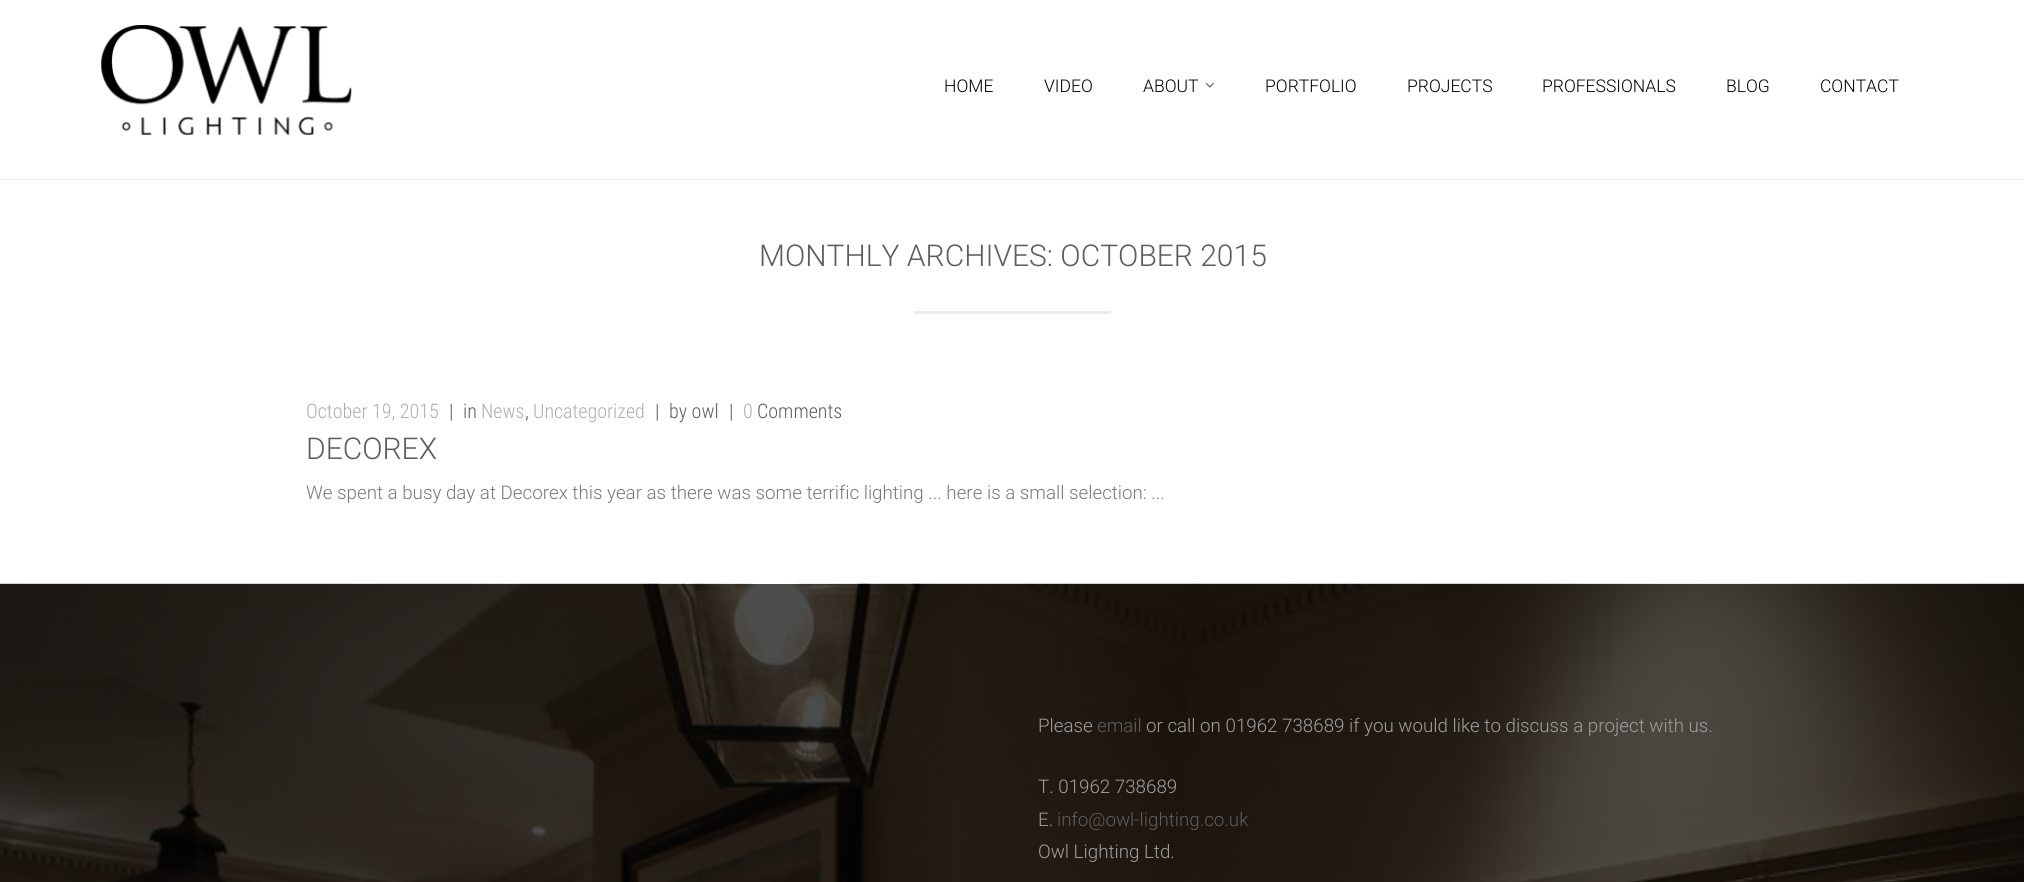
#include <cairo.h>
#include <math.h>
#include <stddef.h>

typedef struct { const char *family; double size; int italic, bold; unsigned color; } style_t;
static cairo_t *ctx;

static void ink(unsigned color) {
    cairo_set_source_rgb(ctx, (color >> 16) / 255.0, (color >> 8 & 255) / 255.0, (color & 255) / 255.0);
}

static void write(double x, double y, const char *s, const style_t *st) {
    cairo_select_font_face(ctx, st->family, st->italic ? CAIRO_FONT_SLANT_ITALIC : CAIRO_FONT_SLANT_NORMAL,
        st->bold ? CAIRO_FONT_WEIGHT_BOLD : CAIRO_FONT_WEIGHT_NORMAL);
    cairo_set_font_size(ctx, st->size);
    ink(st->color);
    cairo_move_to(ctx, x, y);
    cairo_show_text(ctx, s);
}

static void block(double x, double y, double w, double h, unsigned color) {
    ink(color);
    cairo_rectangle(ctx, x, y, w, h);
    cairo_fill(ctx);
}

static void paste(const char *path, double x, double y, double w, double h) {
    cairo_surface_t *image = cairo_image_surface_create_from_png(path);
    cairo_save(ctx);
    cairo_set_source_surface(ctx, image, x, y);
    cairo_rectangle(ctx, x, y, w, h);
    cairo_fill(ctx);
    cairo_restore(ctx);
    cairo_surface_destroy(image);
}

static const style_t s1 = {"Roboto Light", 17.5, 0, 0, 0x000000};
static const style_t s2 = {"Roboto Light", 30, 0, 0, 0x5b5e60};
static const style_t s3 = {"Roboto Condensed Light", 20, 0, 0, 0xaeaeae};
static const style_t s4 = {"Roboto Condensed Light", 20, 0, 0, 0x5b5e60};
static const style_t s5 = {"Roboto Light", 18.75, 0, 0, 0x777777};
static const style_t s6 = {"Roboto Light", 18.75, 0, 0, 0xa0a0a0};
static const style_t s7 = {"Roboto Light", 18.75, 0, 0, 0x5b5e60};

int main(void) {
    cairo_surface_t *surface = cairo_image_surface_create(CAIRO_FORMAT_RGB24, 2024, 882);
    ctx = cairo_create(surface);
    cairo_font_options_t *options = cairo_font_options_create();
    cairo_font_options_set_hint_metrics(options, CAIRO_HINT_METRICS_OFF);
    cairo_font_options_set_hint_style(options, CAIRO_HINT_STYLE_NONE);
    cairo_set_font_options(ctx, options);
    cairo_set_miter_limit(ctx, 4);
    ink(0xffffff);
    cairo_paint(ctx);
    block(0, 179, 2024, 1, 0xececec);
    paste("pic1.png", 101, 25, 251, 110);
    write(944, 92, "HOME", &s1);
    write(1044, 92, "VIDEO", &s1);
    write(1143, 92, "ABOUT", &s1);
    paste("pic2.png", 1205, 82, 9, 6);
    write(1265, 92, "PORTFOLIO", &s1);
    write(1407, 92, "PROJECTS", &s1);
    write(1542, 92, "PROFESSIONALS", &s1);
    write(1726, 92, "BLOG", &s1);
    write(1820, 92, "CONTACT", &s1);
    write(759, 266, "MONTHLY ARCHIVES: OCTOBER 2015", &s2);
    block(914, 311, 197, 3, 0xececec);
    write(306, 418, "October 19, 2015", &s3);
    write(449, 418, "|", &s4);
    write(463, 418, "in", &s4);
    write(481, 418, "News", &s3);
    write(525, 418, ",", &s4);
    write(533, 418, "Uncategorized", &s3);
    write(655, 418, "|", &s4);
    write(669, 418, "by owl", &s4);
    write(729, 418, "|", &s4);
    write(743, 418, "0", &s3);
    write(757, 418, "Comments", &s4);
    write(306, 459, "DECOREX", &s2);
    write(306, 499, "We spent a busy day at Decorex this year as there was some terrific lighting ... here is a small selection: ...", &s5);
    paste("pic3.png", 0, 583, 2024, 299);
    write(1038, 732, "Please", &s6);
    write(1097, 732, "email", &s7);
    write(1146, 732, "or call on 01962 738689 if you would like to discuss a project with us.", &s6);
    write(1038, 793, "T. 01962 738689", &s6);
    write(1038, 826, "E.", &s6);
    write(1057, 826, "info@owl-lighting.co.uk", &s7);
    write(1038, 858, "Owl Lighting Ltd.", &s6);
    cairo_surface_write_to_png(surface, "screenshot.png");
    cairo_font_options_destroy(options);
    cairo_destroy(ctx);
    cairo_surface_destroy(surface);
    return 0;
}
